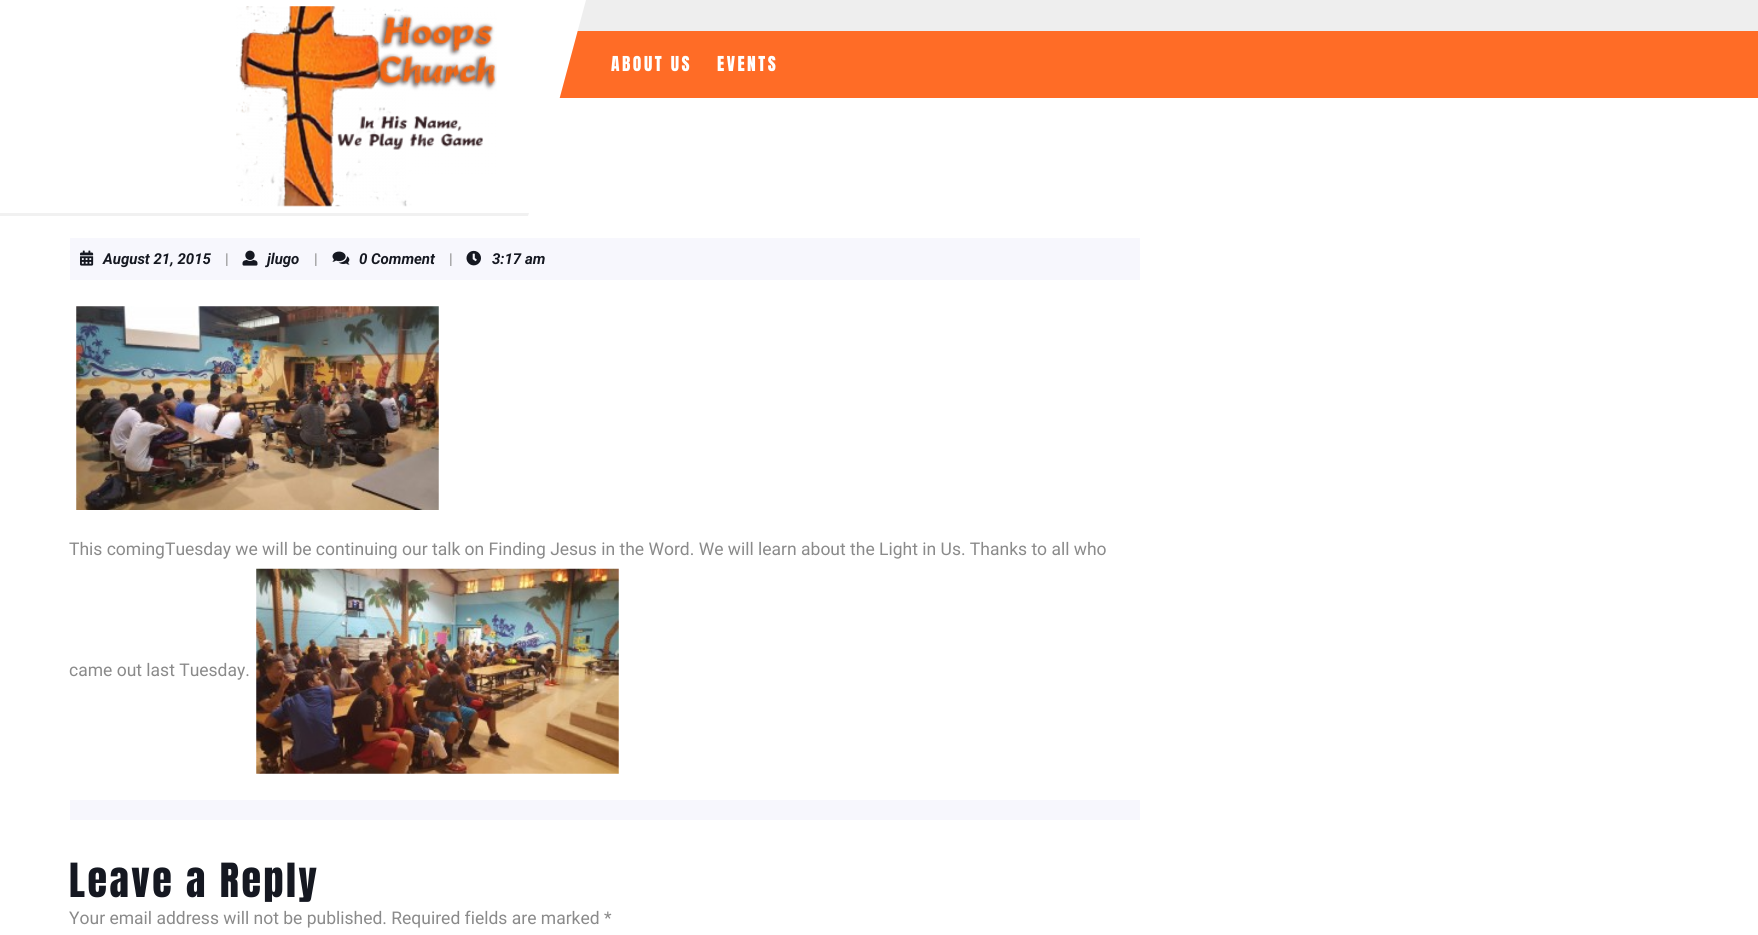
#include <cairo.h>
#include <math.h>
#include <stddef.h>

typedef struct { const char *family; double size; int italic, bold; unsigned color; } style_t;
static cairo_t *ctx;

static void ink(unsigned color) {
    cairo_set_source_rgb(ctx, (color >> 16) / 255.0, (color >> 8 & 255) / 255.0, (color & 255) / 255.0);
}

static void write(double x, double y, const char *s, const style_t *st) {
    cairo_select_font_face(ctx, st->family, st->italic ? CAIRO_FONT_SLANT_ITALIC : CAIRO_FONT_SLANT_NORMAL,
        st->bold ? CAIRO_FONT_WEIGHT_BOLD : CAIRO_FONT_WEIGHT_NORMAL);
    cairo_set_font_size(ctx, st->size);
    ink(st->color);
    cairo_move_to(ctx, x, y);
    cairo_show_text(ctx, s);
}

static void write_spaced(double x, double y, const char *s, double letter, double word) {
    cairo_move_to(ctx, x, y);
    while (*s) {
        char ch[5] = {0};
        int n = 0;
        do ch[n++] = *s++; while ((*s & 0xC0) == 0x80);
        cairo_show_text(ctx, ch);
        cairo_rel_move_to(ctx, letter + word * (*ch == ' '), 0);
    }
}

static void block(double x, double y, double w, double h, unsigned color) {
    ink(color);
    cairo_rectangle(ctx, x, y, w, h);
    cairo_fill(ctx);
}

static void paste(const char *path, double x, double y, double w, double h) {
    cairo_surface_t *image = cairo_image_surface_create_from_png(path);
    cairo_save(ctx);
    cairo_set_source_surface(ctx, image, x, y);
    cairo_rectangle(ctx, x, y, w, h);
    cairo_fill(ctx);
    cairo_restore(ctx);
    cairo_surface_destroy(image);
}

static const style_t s1 = {"Roboto", 15, 1, 1, 0x151821};
static const style_t s2 = {"Roboto", 15, 0, 0, 0x8a8a8a};
static const style_t s3 = {"Roboto", 17.5, 0, 0, 0x8a8a8a};

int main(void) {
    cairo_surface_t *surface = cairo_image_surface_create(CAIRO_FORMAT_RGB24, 1758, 935);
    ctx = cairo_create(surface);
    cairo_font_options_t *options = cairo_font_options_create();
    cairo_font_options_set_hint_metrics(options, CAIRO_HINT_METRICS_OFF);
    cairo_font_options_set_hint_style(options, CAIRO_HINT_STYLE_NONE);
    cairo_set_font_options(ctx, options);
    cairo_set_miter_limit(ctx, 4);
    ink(0xffffff);
    cairo_paint(ctx);
    block(577, 0, 1181, 31, 0xeeeeee);
    block(559, 31, 1199, 67, 0xff6c26);
    ink(0xffffff);
    cairo_new_path(ctx);
    cairo_move_to(ctx, 0, 0);
    cairo_line_to(ctx, 0, 216);
    cairo_line_to(ctx, 528, 216);
    cairo_line_to(ctx, 586, 0);
    cairo_close_path(ctx);
    cairo_fill(ctx);
    ink(0xf1f1f1);
    cairo_new_path(ctx);
    cairo_move_to(ctx, 0, 213);
    cairo_line_to(ctx, 0, 216);
    cairo_line_to(ctx, 528, 216);
    cairo_line_to(ctx, 529, 213);
    cairo_close_path(ctx);
    cairo_fill(ctx);
    paste("pic1.png", 236, 6, 261, 201);
    cairo_select_font_face(ctx, "Anton", CAIRO_FONT_SLANT_NORMAL, CAIRO_FONT_WEIGHT_NORMAL);
    cairo_set_font_size(ctx, 17.5);
    ink(0xffffff);
    write_spaced(611, 71, "ABOUT US", 2.5, 0);
    write_spaced(717, 71, "EVENTS", 2.5, 0);
    block(70, 238, 1070, 42, 0xf7f7fd);
    paste("pic2.png", 80, 250, 14, 16);
    write(103, 264, "August 21, 2015", &s1);
    write(225, 264, "|", &s2);
    paste("pic3.png", 242, 250, 16, 16);
    write(267, 264, "jlugo", &s1);
    write(314, 264, "|", &s2);
    paste("pic4.png", 332, 251, 18, 14);
    write(359, 264, "0 Comment", &s1);
    write(449, 264, "|", &s2);
    paste("pic5.png", 466, 250, 15, 16);
    write(492, 264, "3:17 am", &s1);
    paste("pic6.png", 76, 306, 363, 204);
    write(69, 555, "This comingTuesday we will be continuing our talk on Finding Jesus in the Word. We will learn about the Light in Us. Thanks to all who", &s3);
    write(69, 676, "came out last Tuesday.", &s3);
    paste("pic7.png", 256, 568, 363, 206);
    block(70, 800, 1070, 20, 0xf7f7fd);
    cairo_select_font_face(ctx, "Anton", CAIRO_FONT_SLANT_NORMAL, CAIRO_FONT_WEIGHT_NORMAL);
    cairo_set_font_size(ctx, 40);
    ink(0x151821);
    write_spaced(69, 897, "Leave a Reply", 2.5, 0);
    write(69, 924, "Your email address will not be published. Required fields are marked *", &s3);
    cairo_surface_write_to_png(surface, "screenshot.png");
    cairo_font_options_destroy(options);
    cairo_destroy(ctx);
    cairo_surface_destroy(surface);
    return 0;
}
